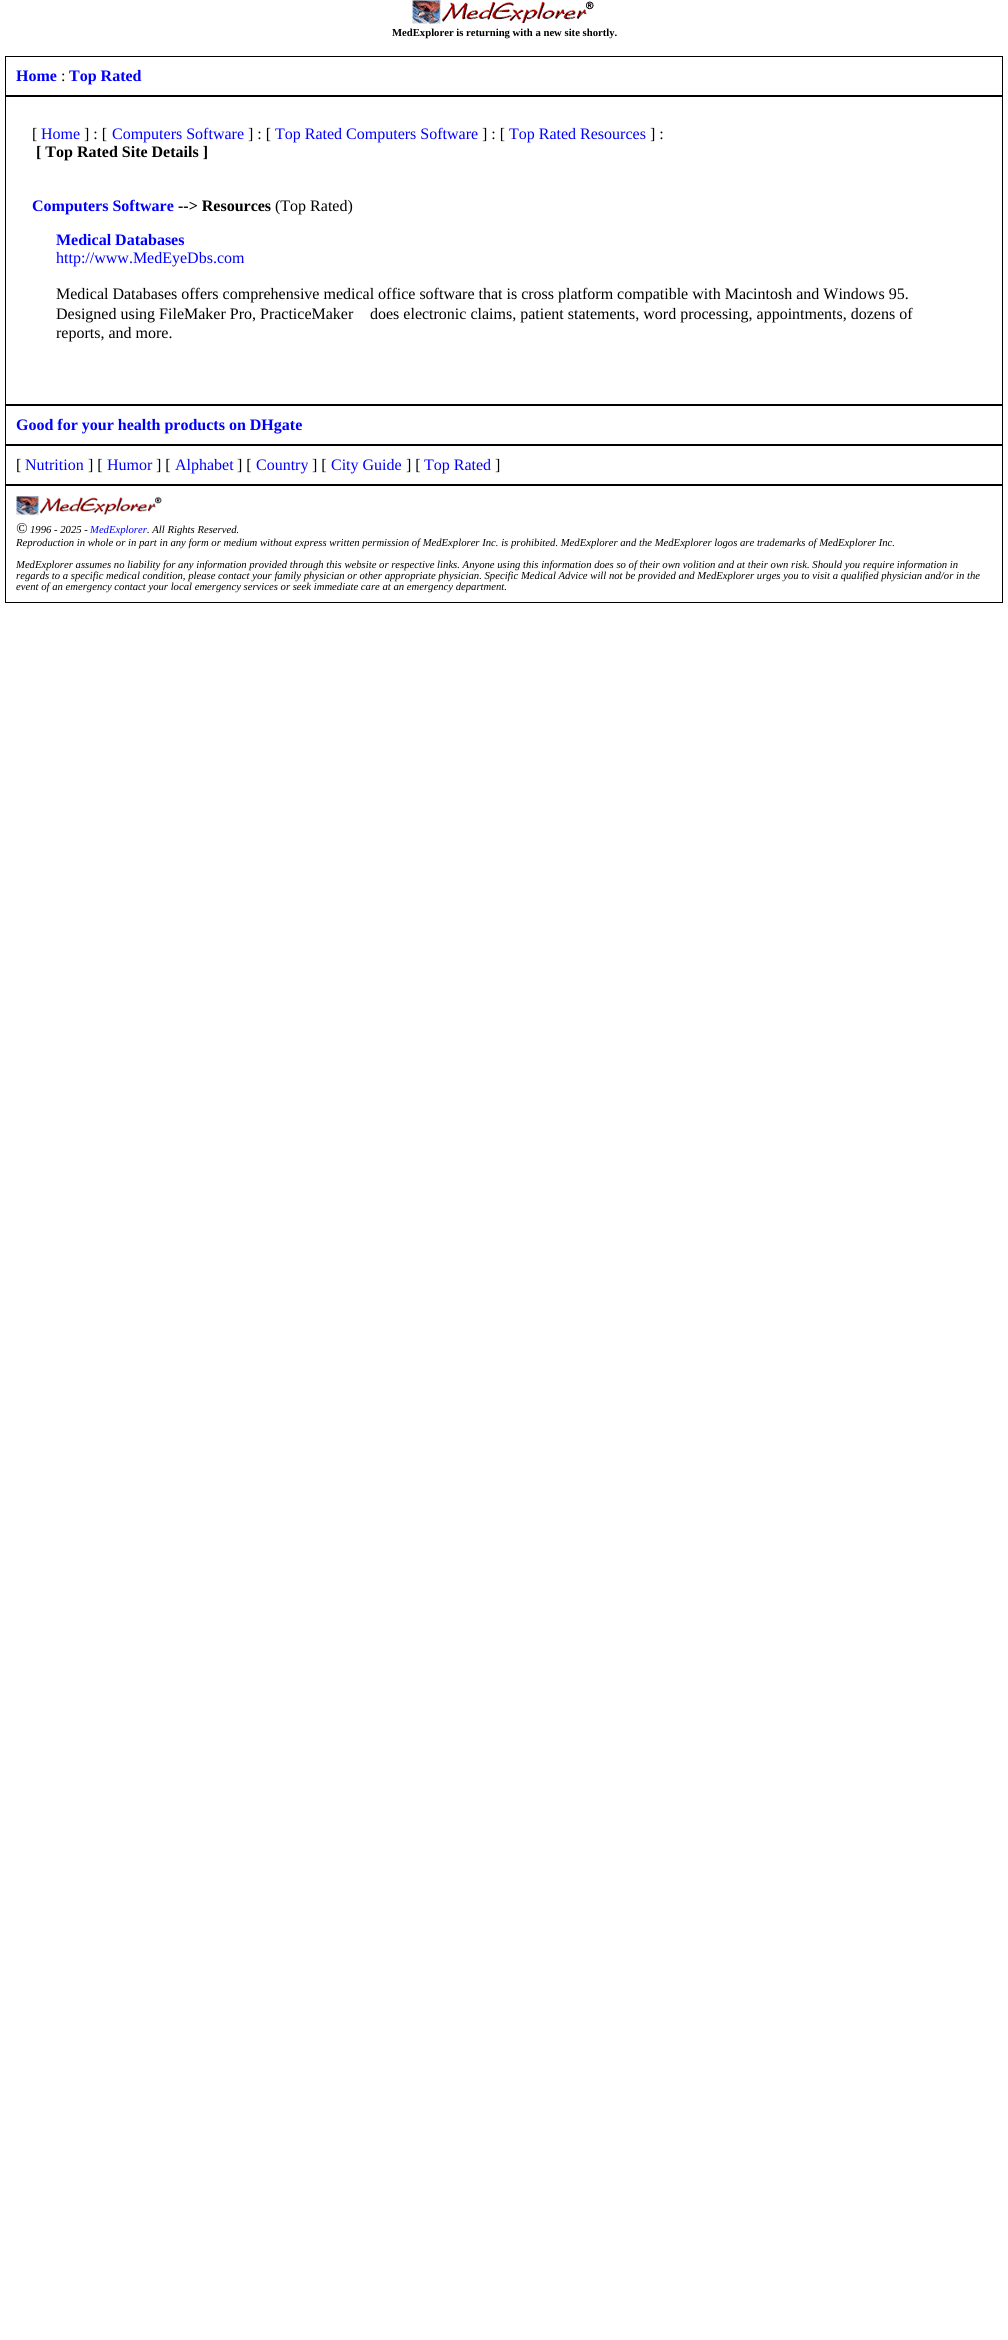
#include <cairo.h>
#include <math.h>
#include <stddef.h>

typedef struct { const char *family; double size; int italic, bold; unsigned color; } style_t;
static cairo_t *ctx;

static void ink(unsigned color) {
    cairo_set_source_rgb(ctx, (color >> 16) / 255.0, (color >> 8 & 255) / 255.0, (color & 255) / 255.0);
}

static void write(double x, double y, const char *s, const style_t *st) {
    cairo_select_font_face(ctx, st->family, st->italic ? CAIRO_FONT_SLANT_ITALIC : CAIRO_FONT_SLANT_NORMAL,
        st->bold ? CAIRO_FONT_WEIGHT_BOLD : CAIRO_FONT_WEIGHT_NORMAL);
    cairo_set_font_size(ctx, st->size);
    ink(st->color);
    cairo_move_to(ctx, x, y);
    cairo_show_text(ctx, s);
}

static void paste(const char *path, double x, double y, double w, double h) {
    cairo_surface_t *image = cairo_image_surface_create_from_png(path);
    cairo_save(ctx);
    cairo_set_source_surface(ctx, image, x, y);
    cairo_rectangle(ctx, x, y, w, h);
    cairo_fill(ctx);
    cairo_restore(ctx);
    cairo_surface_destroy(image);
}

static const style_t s1 = {"Liberation Serif", 10.67, 0, 1, 0x000000};
static const style_t s2 = {"Liberation Serif", 16, 0, 1, 0x0000ff};
static const style_t s3 = {"Liberation Serif", 16, 0, 0, 0x000000};
static const style_t s4 = {"Liberation Serif", 16, 0, 0, 0x0000ff};
static const style_t s5 = {"Liberation Serif", 16, 0, 1, 0x000000};
static const style_t s6 = {"Liberation Serif", 15, 1, 0, 0x000000};
static const style_t s7 = {"Liberation Serif", 10.67, 1, 0, 0x000000};
static const style_t s8 = {"Liberation Serif", 10.67, 1, 0, 0x0000ff};

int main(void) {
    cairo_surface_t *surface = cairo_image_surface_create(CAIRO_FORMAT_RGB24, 1008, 2340);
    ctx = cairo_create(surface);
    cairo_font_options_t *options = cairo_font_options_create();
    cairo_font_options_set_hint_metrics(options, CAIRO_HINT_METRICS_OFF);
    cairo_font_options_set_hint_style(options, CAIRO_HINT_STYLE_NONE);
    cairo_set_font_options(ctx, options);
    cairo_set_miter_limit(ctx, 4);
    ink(0xffffff);
    cairo_paint(ctx);
    paste("pic1.png", 412, 0, 183, 25);
    write(392, 36, "MedExplorer is returning with a new site shortly.", &s1);
    cairo_rectangle(ctx, 5.5, 56.5, 997, 39);
    cairo_set_line_width(ctx, 1);
    cairo_stroke(ctx);
    write(16, 81, "Home", &s2);
    write(61, 81, ":", &s3);
    write(69, 81, "Top Rated", &s2);
    cairo_rectangle(ctx, 5.5, 96.5, 997, 308);
    ink(0x000000);
    cairo_stroke(ctx);
    write(32, 139, "[", &s3);
    write(41, 139, "Home", &s4);
    write(84, 139, "] : [", &s3);
    write(112, 139, "Computers Software", &s4);
    write(248, 139, "] : [", &s3);
    write(275, 139, "Top Rated Computers Software", &s4);
    write(482, 139, "] : [", &s3);
    write(509, 139, "Top Rated Resources", &s4);
    write(650, 139, "] :", &s3);
    write(36, 157, "[ Top Rated Site Details ]", &s5);
    write(32, 211, "Computers Software", &s2);
    write(178, 211, "--> Resources", &s5);
    write(275, 211, "(Top Rated)", &s3);
    write(56, 245, "Medical Databases", &s2);
    write(56, 263, "http://www.MedEyeDbs.com", &s4);
    write(56, 299, "Medical Databases offers comprehensive medical office software that is cross platform compatible with Macintosh and Windows 95.", &s3);
    write(56, 319, "Designed using FileMaker Pro, PracticeMaker", &s3);
    write(370, 319, "does electronic claims, patient statements, word processing, appointments, dozens of", &s3);
    write(56, 338, "reports, and more.", &s3);
    cairo_rectangle(ctx, 5.5, 405.5, 997, 39);
    cairo_stroke(ctx);
    write(16, 430, "Good for your health products on DHgate", &s2);
    cairo_rectangle(ctx, 5.5, 445.5, 997, 39);
    ink(0x000000);
    cairo_stroke(ctx);
    write(16, 470, "[", &s3);
    write(25, 470, "Nutrition", &s4);
    write(88, 470, "] [", &s3);
    write(107, 470, "Humor", &s4);
    write(156, 470, "] [", &s3);
    write(175, 470, "Alphabet", &s4);
    write(237, 470, "] [", &s3);
    write(256, 470, "Country", &s4);
    write(312, 470, "] [", &s3);
    write(331, 470, "City Guide", &s4);
    write(406, 470, "] [", &s3);
    write(424, 470, "Top Rated", &s4);
    write(495, 470, "]", &s3);
    cairo_rectangle(ctx, 5.5, 485.5, 997, 117);
    cairo_stroke(ctx);
    paste("pic2.png", 16, 496, 146, 20);
    write(16, 533, "©", &s6);
    write(30, 533, "1996 - 2025 -", &s7);
    write(90, 533, "MedExplorer", &s8);
    write(147, 533, ". All Rights Reserved.", &s7);
    write(16, 546, "Reproduction in whole or in part in any form or medium without express written permission of MedExplorer Inc. is prohibited. MedExplorer and the MedExplorer logos are trademarks of MedExplorer Inc.", &s7);
    write(16, 568, "MedExplorer assumes no liability for any information provided through this website or respective links. Anyone using this information does so of their own volition and at their own risk. Should you require information in", &s7);
    write(16, 579, "regards to a specific medical condition, please contact your family physician or other appropriate physician. Specific Medical Advice will not be provided and MedExplorer urges you to visit a qualified physician and/or in the", &s7);
    write(16, 590, "event of an emergency contact your local emergency services or seek immediate care at an emergency department.", &s7);
    cairo_surface_write_to_png(surface, "screenshot.png");
    cairo_font_options_destroy(options);
    cairo_destroy(ctx);
    cairo_surface_destroy(surface);
    return 0;
}
